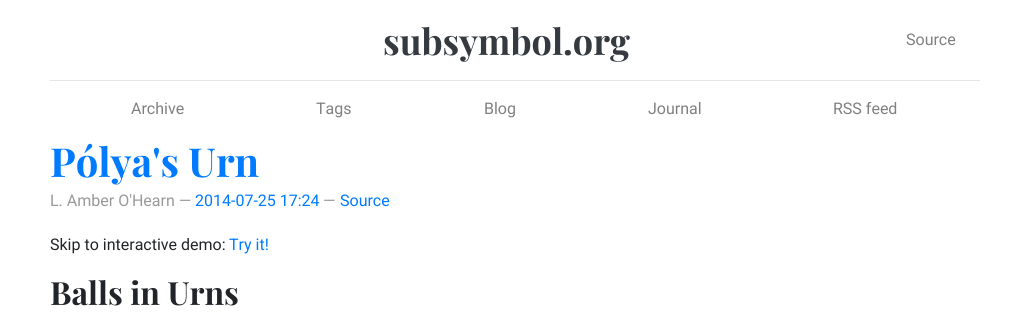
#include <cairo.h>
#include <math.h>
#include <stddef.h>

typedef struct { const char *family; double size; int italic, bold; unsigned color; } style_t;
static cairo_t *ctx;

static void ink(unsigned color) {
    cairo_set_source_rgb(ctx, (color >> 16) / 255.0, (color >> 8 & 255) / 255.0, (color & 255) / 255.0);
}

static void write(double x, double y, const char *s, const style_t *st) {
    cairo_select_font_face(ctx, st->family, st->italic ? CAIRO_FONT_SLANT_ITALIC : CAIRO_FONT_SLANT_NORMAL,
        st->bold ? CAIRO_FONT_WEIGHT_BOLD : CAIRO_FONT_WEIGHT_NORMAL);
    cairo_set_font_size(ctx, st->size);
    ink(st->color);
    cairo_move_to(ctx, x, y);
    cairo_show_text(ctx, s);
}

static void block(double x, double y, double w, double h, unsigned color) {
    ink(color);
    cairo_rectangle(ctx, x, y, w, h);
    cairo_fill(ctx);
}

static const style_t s1 = {"Playfair Display", 36, 0, 1, 0x343a40};
static const style_t s2 = {"Roboto", 16, 0, 0, 0x808080};
static const style_t s3 = {"Playfair Display", 40, 0, 1, 0x007bff};
static const style_t s4 = {"Roboto", 16, 0, 0, 0x999999};
static const style_t s5 = {"Roboto", 16, 0, 0, 0x007bff};
static const style_t s6 = {"Roboto", 16, 0, 0, 0x212529};
static const style_t s7 = {"Playfair Display", 32, 0, 1, 0x212529};

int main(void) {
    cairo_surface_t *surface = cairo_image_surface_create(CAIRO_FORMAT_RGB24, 1029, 328);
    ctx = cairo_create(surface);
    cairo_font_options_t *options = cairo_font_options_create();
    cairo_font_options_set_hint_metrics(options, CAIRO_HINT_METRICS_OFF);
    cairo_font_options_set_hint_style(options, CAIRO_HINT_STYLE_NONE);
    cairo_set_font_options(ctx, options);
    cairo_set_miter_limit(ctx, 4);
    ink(0xffffff);
    cairo_paint(ctx);
    block(50, 80, 930, 1, 0xe5e5e5);
    write(383, 55, "subsymbol.org", &s1);
    write(906, 45, "Source", &s2);
    write(131, 114, "Archive", &s2);
    write(316, 114, "Tags", &s2);
    write(484, 114, "Blog", &s2);
    write(648, 114, "Journal", &s2);
    write(833, 114, "RSS feed", &s2);
    write(50, 177, "Pólya's Urn", &s3);
    write(50, 206, "L. Amber O'Hearn —", &s4);
    write(195, 206, "2014-07-25 17:24", &s5);
    write(323, 206, "—", &s4);
    write(340, 206, "Source", &s5);
    write(50, 250, "Skip to interactive demo:", &s6);
    write(229, 250, "Try it!", &s5);
    write(50, 305, "Balls in Urns", &s7);
    cairo_surface_write_to_png(surface, "screenshot.png");
    cairo_font_options_destroy(options);
    cairo_destroy(ctx);
    cairo_surface_destroy(surface);
    return 0;
}
